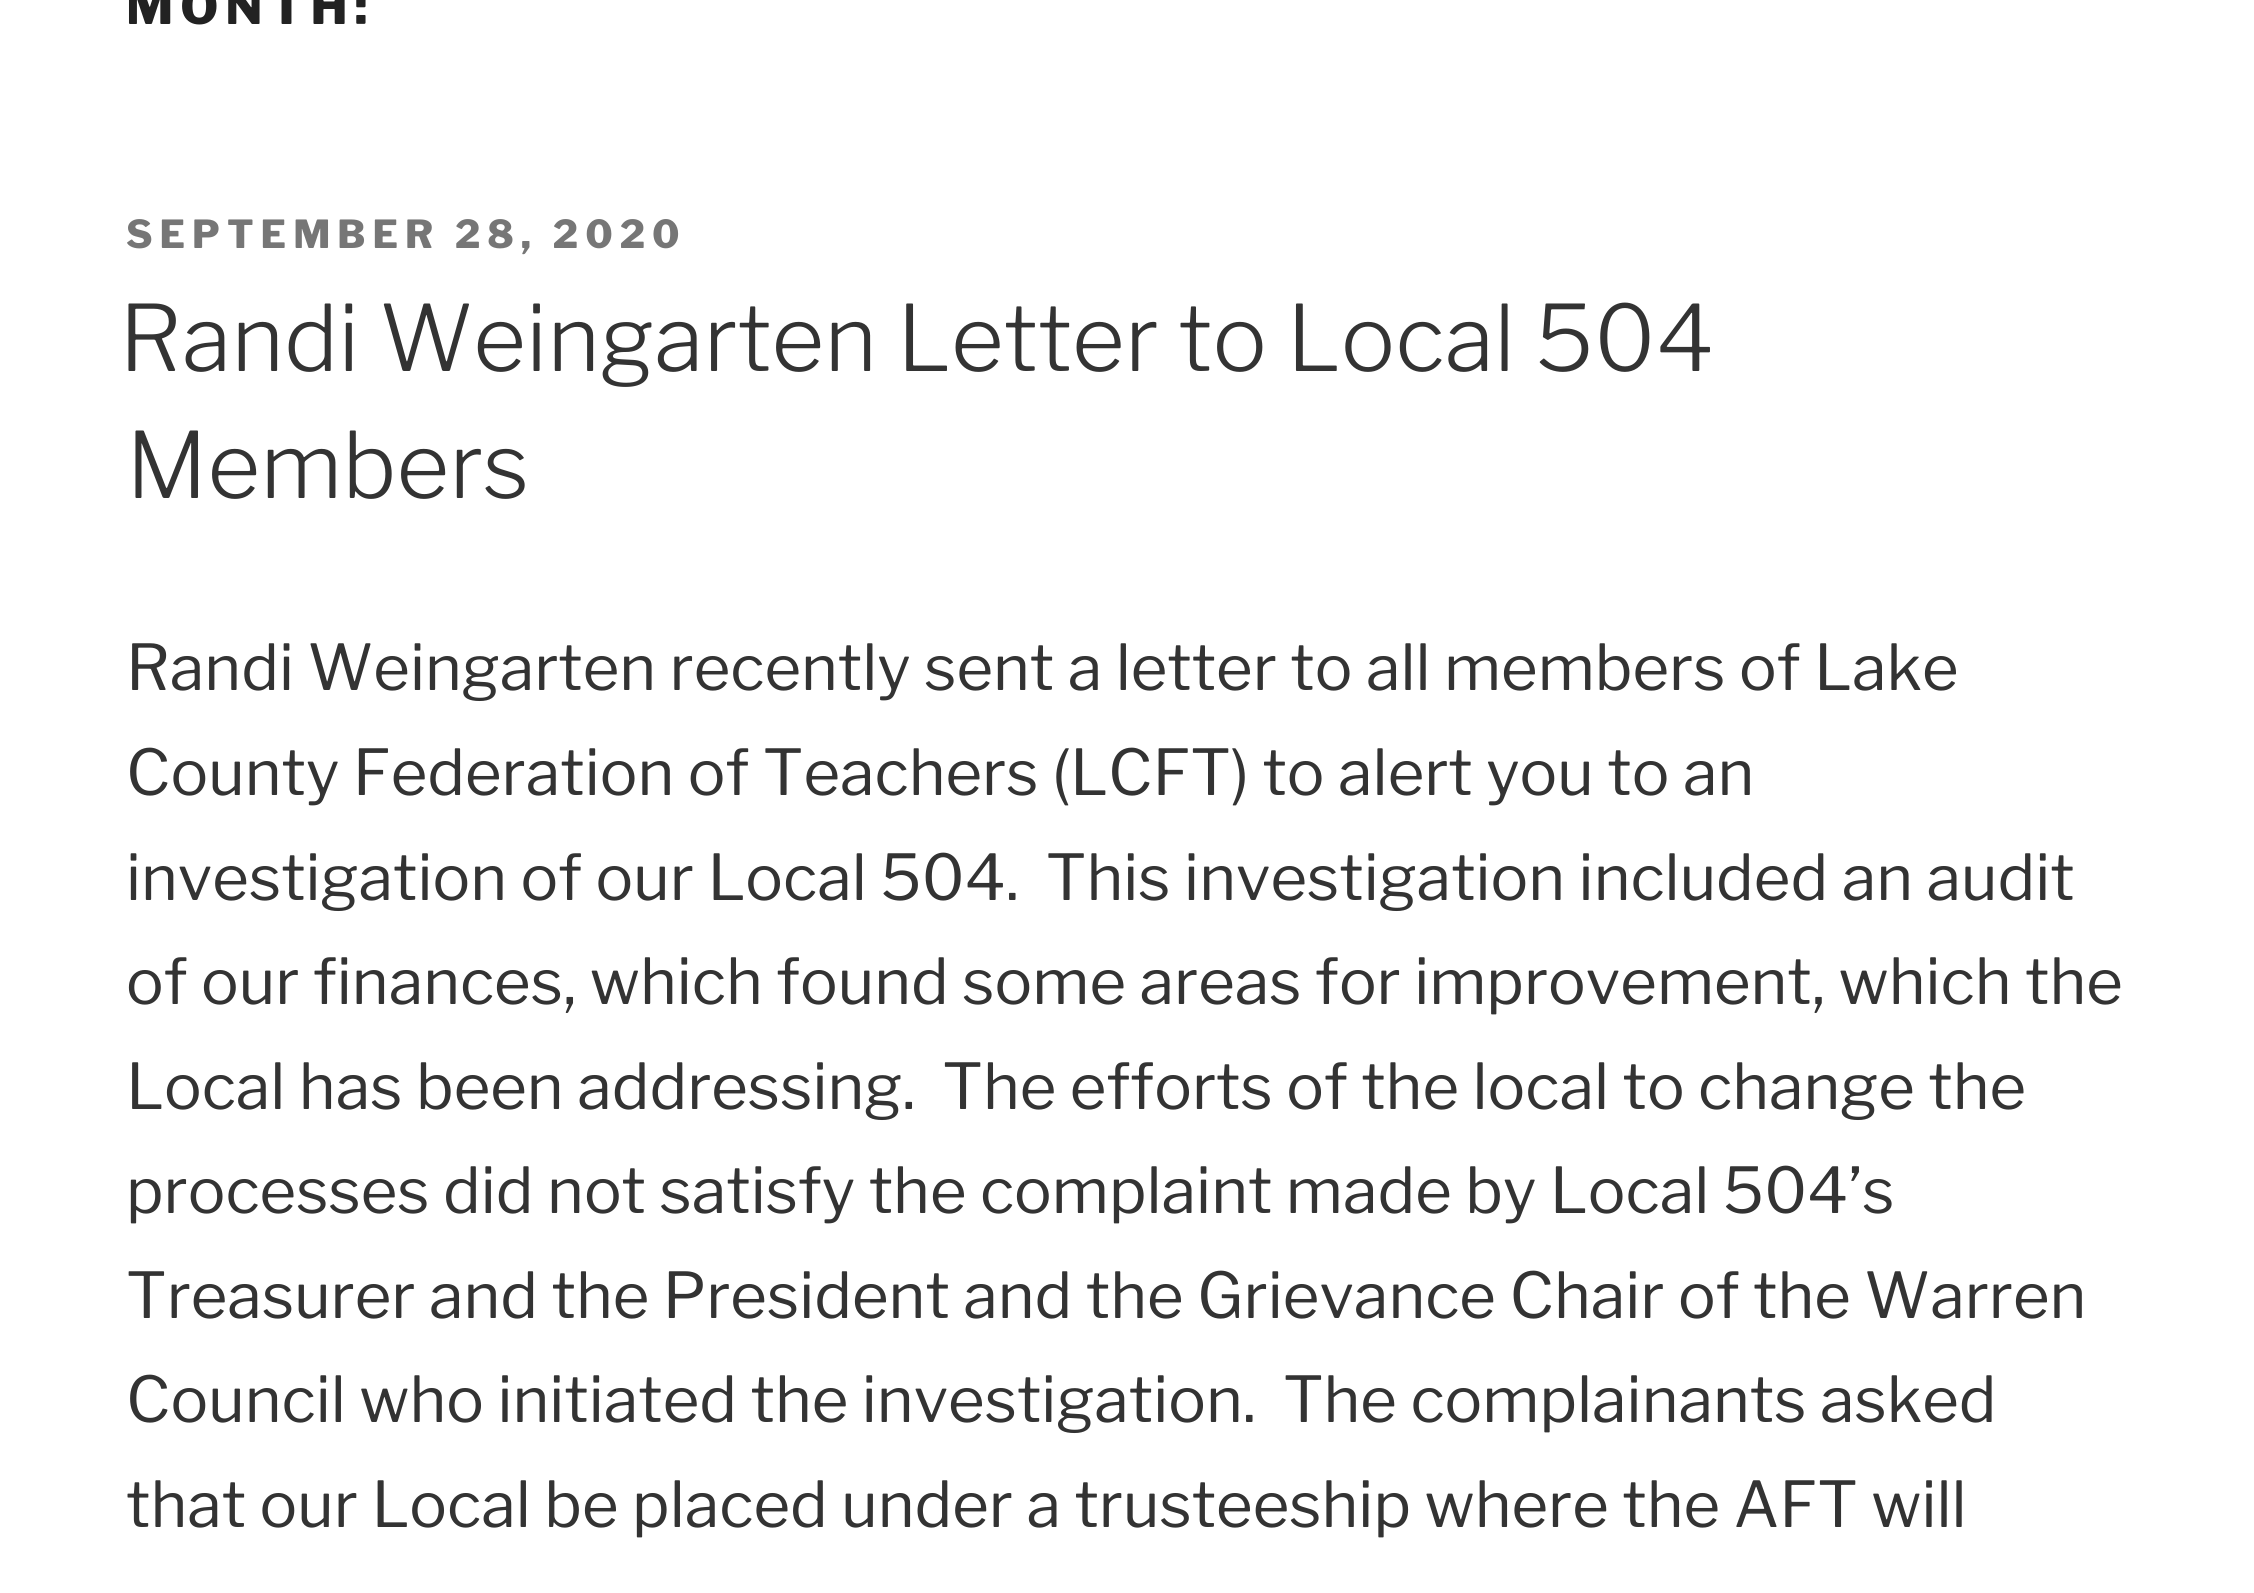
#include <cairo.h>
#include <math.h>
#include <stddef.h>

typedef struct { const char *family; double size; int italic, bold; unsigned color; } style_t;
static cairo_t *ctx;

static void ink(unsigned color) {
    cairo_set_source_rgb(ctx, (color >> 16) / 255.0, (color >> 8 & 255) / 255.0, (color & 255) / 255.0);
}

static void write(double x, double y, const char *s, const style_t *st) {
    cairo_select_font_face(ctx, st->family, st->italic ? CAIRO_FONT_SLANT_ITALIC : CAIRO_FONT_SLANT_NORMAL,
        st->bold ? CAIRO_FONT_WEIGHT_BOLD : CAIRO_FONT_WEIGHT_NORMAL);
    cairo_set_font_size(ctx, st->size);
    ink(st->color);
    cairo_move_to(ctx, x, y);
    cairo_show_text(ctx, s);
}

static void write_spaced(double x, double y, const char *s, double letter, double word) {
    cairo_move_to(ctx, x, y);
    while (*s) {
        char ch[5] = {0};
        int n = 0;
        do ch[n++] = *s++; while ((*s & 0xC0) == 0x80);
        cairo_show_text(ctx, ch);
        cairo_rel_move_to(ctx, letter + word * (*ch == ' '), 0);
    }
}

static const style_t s1 = {"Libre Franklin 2 Thin", 91, 0, 0, 0x333333};
static const style_t s2 = {"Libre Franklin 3 Thin", 63, 0, 0, 0x333333};

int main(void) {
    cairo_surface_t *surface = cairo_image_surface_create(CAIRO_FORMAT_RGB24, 2254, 1593);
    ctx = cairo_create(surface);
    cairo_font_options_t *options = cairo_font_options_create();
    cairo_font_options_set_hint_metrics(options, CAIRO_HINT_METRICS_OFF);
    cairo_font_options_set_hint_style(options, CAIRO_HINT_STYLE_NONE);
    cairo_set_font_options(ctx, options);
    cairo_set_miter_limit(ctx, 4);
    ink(0xffffff);
    cairo_paint(ctx);
    cairo_select_font_face(ctx, "Libre Franklin Thin", CAIRO_FONT_SLANT_NORMAL, CAIRO_FONT_WEIGHT_NORMAL);
    cairo_set_font_size(ctx, 49);
    ink(0x222222);
    write_spaced(126, 24, "MONTH:", 7, 0);
    cairo_set_font_size(ctx, 38.5);
    ink(0x767676);
    write_spaced(126, 248, "SEPTEMBER 28, 2020", 7, 0);
    write(119, 371, "Randi Weingarten Letter to Local 504", &s1);
    write(126, 498, "Members", &s1);
    write(126, 690, "Randi Weingarten recently sent a letter to all members of Lake", &s2);
    write(126, 795, "County Federation of Teachers (LCFT) to alert you to an", &s2);
    write(126, 900, "investigation of our Local 504.  This investigation included an audit", &s2);
    write(126, 1004, "of our finances, which found some areas for improvement, which the", &s2);
    write(126, 1109, "Local has been addressing.  The efforts of the local to change the", &s2);
    write(126, 1213, "processes did not satisfy the complaint made by Local 504’s", &s2);
    write(126, 1318, "Treasurer and the President and the Grievance Chair of the Warren", &s2);
    write(126, 1422, "Council who initiated the investigation.  The complainants asked", &s2);
    write(126, 1527, "that our Local be placed under a trusteeship where the AFT will", &s2);
    cairo_surface_write_to_png(surface, "screenshot.png");
    cairo_font_options_destroy(options);
    cairo_destroy(ctx);
    cairo_surface_destroy(surface);
    return 0;
}
